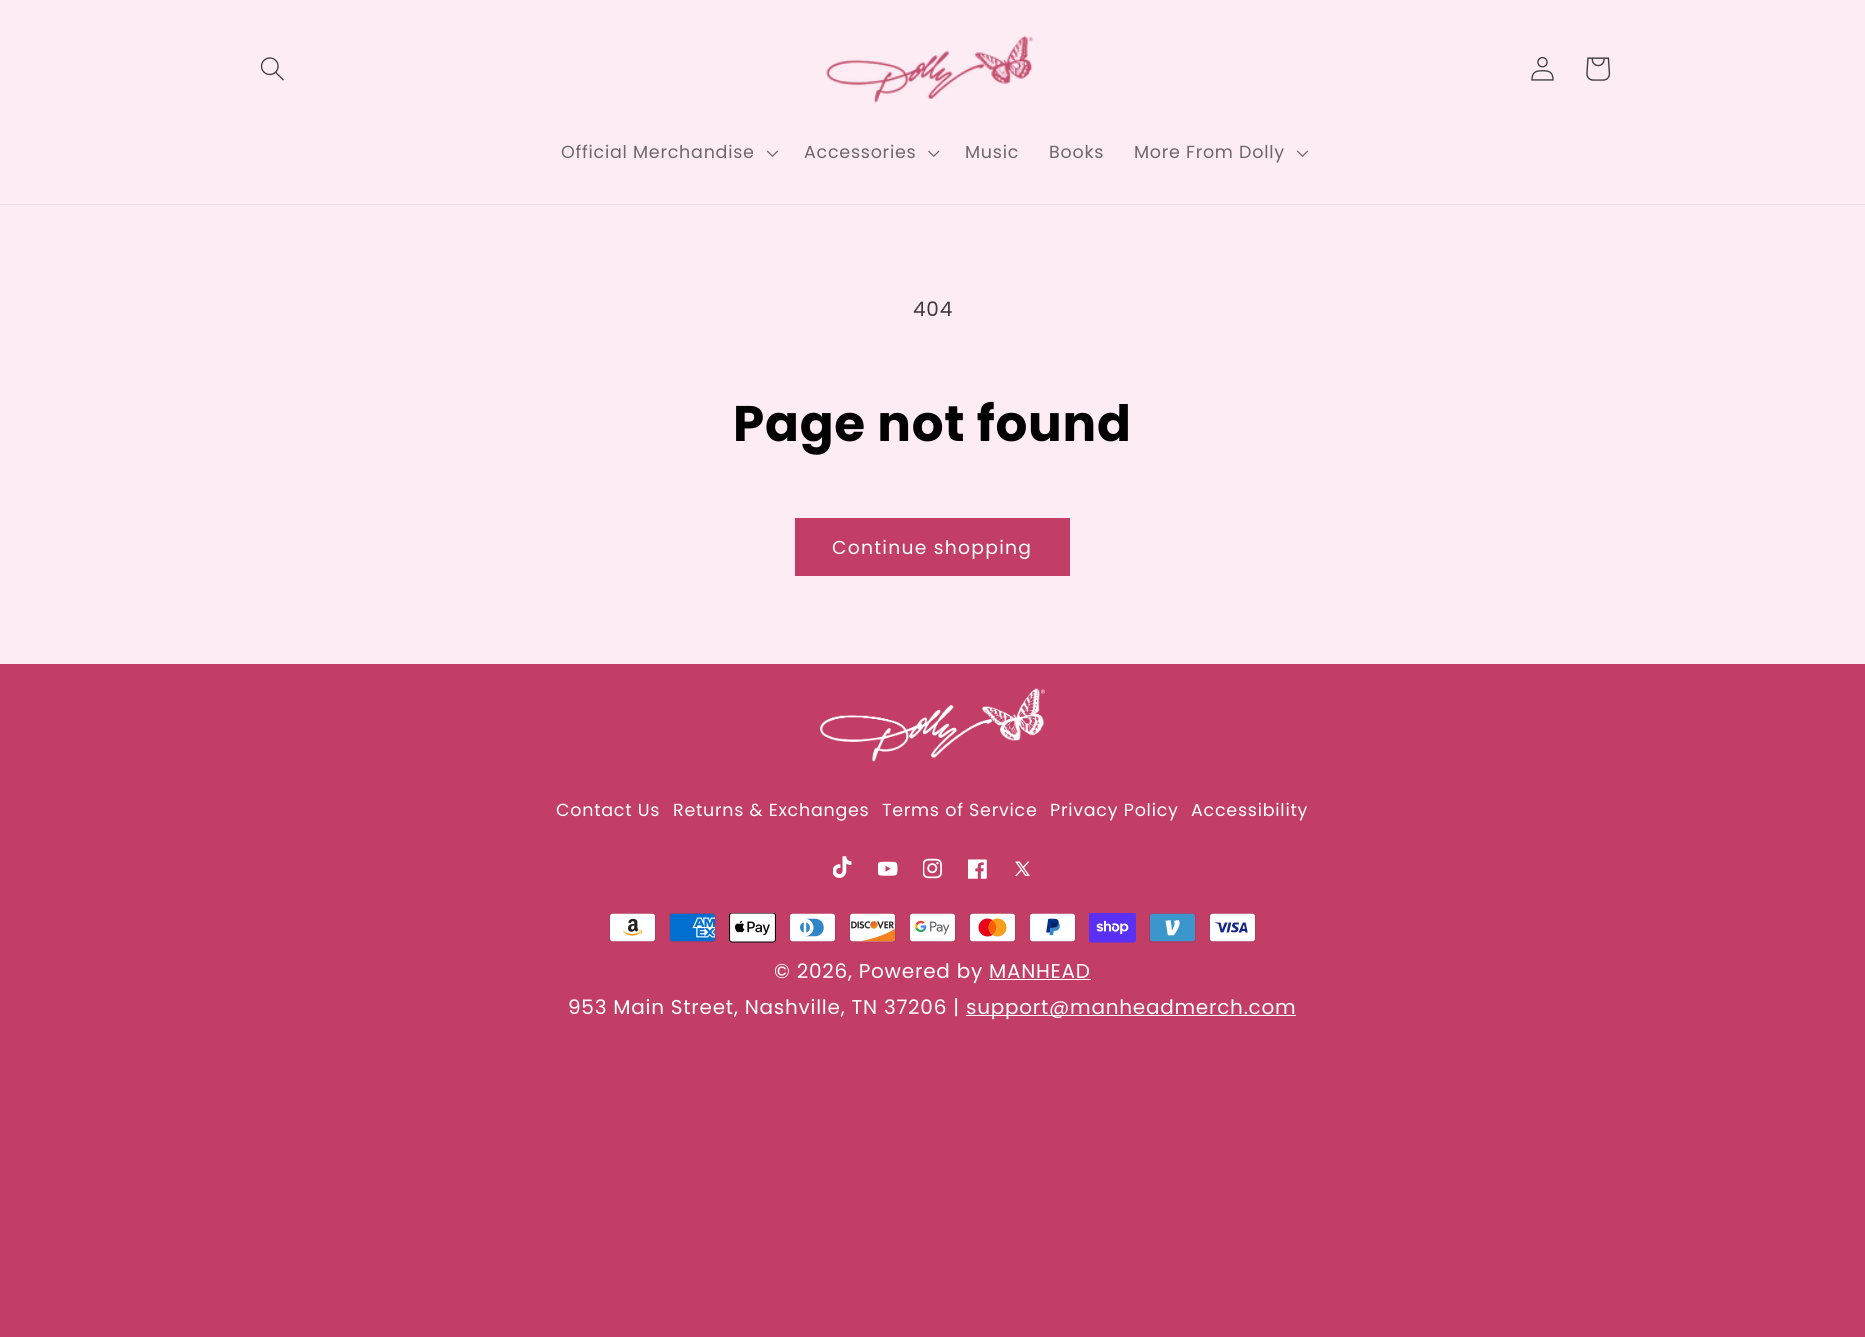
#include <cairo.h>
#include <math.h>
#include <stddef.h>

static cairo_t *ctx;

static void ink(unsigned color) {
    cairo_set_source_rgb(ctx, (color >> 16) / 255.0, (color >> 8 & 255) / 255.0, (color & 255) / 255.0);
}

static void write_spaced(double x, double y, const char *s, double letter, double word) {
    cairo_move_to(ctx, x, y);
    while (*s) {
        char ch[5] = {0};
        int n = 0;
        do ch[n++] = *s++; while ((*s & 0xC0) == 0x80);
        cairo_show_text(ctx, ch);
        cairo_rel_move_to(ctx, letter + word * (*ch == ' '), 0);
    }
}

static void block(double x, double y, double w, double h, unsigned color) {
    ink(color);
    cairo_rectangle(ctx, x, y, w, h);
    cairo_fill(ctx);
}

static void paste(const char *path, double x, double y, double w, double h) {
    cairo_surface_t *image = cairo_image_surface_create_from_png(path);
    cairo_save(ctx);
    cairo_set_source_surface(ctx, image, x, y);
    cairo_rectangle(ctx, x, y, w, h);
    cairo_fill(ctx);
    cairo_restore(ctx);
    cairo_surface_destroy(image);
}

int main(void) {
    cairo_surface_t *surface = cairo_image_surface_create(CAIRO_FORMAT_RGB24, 1865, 1337);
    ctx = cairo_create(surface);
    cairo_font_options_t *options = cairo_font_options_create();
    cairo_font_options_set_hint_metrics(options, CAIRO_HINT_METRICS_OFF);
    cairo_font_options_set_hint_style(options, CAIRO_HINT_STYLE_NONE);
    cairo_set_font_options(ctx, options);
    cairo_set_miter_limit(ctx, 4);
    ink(0xfdecf4);
    cairo_paint(ctx);
    block(0, 204, 1865, 1, 0xeedee5);
    paste("pic1.png", 260, 57, 24, 24);
    paste("pic2.png", 826, 36, 208, 67);
    paste("pic3.png", 1531, 56, 23, 25);
    paste("pic4.png", 1586, 57, 25, 24);
    cairo_select_font_face(ctx, "Poppins", CAIRO_FONT_SLANT_NORMAL, CAIRO_FONT_WEIGHT_NORMAL);
    cairo_set_font_size(ctx, 17.5);
    ink(0x6c6769);
    write_spaced(561, 158, "Official Merchandise", 0.75, 0);
    paste("pic5.png", 766, 150, 13, 7);
    write_spaced(804, 158, "Accessories", 0.75, 0);
    paste("pic6.png", 928, 150, 12, 7);
    write_spaced(965, 158, "Music", 0.75, 0);
    write_spaced(1049, 158, "Books", 0.75, 0);
    write_spaced(1134, 158, "More From Dolly", 0.75, 0);
    paste("pic5.png", 1296, 150, 13, 7);
    cairo_set_font_size(ctx, 20);
    ink(0x3f3b3d);
    write_spaced(913, 316, "404", 0.75, 0);
    cairo_select_font_face(ctx, "Poppins", CAIRO_FONT_SLANT_NORMAL, CAIRO_FONT_WEIGHT_BOLD);
    cairo_set_font_size(ctx, 50);
    ink(0x000000);
    write_spaced(733, 441, "Page not found", 0.75, 0);
    block(795, 518, 275, 58, 0xc23e66);
    cairo_select_font_face(ctx, "Poppins", CAIRO_FONT_SLANT_NORMAL, CAIRO_FONT_WEIGHT_NORMAL);
    cairo_set_font_size(ctx, 18.75);
    ink(0xffffff);
    write_spaced(832, 554, "Continue shopping", 1.25, 0);
    block(0, 664, 1865, 673, 0xc23e66);
    paste("pic7.png", 820, 688, 225, 74);
    cairo_set_font_size(ctx, 17.5);
    ink(0xffffff);
    write_spaced(556, 816, "Contact Us", 0.75, 0);
    write_spaced(673, 816, "Returns & Exchanges", 0.75, 0);
    write_spaced(882, 816, "Terms of Service", 0.75, 0);
    write_spaced(1050, 816, "Privacy Policy", 0.75, 0);
    write_spaced(1191, 816, "Accessibility", 0.75, 0);
    paste("pic8.png", 833, 856, 19, 22);
    paste("pic9.png", 878, 861, 20, 15);
    paste("pic10.png", 923, 858, 19, 21);
    paste("pic11.png", 968, 859, 19, 20);
    paste("pic12.png", 1015, 861, 15, 15);
    paste("pic13.png", 609, 913, 47, 30);
    paste("pic14.png", 669, 913, 47, 30);
    paste("pic15.png", 729, 913, 47, 30);
    paste("pic16.png", 789, 913, 47, 30);
    paste("pic17.png", 849, 913, 47, 30);
    paste("pic18.png", 909, 913, 47, 30);
    paste("pic19.png", 969, 913, 47, 30);
    paste("pic20.png", 1029, 913, 47, 30);
    paste("pic21.png", 1089, 913, 47, 30);
    paste("pic22.png", 1149, 913, 47, 30);
    paste("pic23.png", 1209, 913, 47, 30);
    cairo_set_font_size(ctx, 20);
    write_spaced(774, 978, "© 2026, Powered by MANHEAD", 0.75, 0);
    block(989, 979, 102, 1, 0xffffff);
    write_spaced(568, 1014, "953 Main Street, Nashville, TN 37206 |", 0.75, 0);
    block(966, 1015, 330, 1, 0xffffff);
    write_spaced(966, 1014, "support@manheadmerch.com", 0.75, 0);
    cairo_surface_write_to_png(surface, "screenshot.png");
    cairo_font_options_destroy(options);
    cairo_destroy(ctx);
    cairo_surface_destroy(surface);
    return 0;
}
